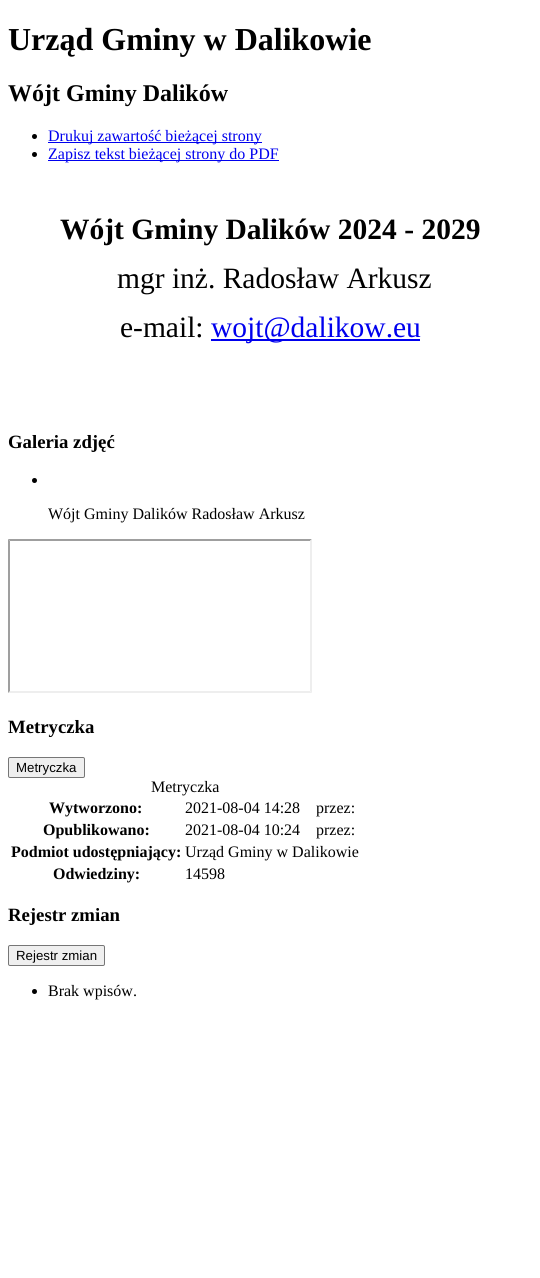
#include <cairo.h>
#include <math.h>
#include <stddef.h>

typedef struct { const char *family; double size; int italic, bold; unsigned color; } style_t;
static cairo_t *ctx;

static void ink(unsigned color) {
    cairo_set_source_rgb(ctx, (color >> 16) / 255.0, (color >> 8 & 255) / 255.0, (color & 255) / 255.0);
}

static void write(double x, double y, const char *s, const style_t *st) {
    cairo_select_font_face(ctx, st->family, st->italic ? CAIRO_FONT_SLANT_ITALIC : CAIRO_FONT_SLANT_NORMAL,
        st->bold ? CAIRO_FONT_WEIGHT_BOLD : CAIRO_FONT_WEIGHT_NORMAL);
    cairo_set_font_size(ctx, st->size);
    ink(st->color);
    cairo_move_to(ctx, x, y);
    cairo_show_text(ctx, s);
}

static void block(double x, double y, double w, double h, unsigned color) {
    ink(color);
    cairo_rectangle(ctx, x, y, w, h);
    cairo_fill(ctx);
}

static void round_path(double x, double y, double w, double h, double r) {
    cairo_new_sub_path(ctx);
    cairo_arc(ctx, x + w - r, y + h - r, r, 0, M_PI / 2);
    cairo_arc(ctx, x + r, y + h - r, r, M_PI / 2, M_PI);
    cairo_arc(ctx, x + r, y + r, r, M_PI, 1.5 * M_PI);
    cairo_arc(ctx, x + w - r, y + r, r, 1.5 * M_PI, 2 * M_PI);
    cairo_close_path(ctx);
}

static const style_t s1 = {"Liberation Serif", 32, 0, 1, 0x000000};
static const style_t s2 = {"Liberation Serif", 24, 0, 1, 0x000000};
static const style_t s3 = {"Liberation Serif", 16, 0, 0, 0x0000ee};
static const style_t s4 = {"Liberation Serif", 29.5, 0, 1, 0x000000};
static const style_t s5 = {"Liberation Serif", 29.5, 0, 0, 0x000000};
static const style_t s6 = {"Liberation Serif", 29.5, 0, 0, 0x0000ee};
static const style_t s7 = {"Liberation Serif", 18.75, 0, 1, 0x000000};
static const style_t s8 = {"Liberation Serif", 16, 0, 0, 0x000000};
static const style_t s9 = {"Liberation Sans", 13.25, 0, 0, 0x000000};
static const style_t s10 = {"Liberation Serif", 16, 0, 1, 0x000000};

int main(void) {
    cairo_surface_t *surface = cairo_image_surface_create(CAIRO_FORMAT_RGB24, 540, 1278);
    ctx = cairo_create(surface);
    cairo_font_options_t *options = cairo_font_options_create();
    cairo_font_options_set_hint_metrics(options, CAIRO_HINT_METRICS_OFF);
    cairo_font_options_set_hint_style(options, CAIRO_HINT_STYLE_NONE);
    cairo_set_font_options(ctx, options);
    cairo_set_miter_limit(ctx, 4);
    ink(0xffffff);
    cairo_paint(ctx);
    write(8, 50, "Urząd Gminy w Dalikowie", &s1);
    write(8, 101, "Wójt Gminy Dalików", &s2);
    cairo_new_path(ctx);
    cairo_arc(ctx, 34.5, 136.5, 2.5, 0, 2 * M_PI);
    cairo_fill(ctx);
    block(48, 142, 214, 1, 0x0000ee);
    write(48, 141, "Drukuj zawartość bieżącej strony", &s3);
    ink(0x000000);
    cairo_new_path(ctx);
    cairo_arc(ctx, 34.5, 154.5, 2.5, 0, 2 * M_PI);
    cairo_fill(ctx);
    block(48, 160, 231, 1, 0x0000ee);
    write(48, 159, "Zapisz tekst bieżącej strony do PDF", &s3);
    write(60, 239, "Wójt Gminy Dalików 2024 - 2029", &s4);
    write(117, 288, "mgr inż. Radosław Arkusz", &s5);
    write(120, 337, "e-mail:", &s5);
    block(211, 339, 209, 2, 0x0000ee);
    write(211, 337, "wojt@dalikow.eu", &s6);
    write(8, 448, "Galeria zdjęć", &s7);
    cairo_new_path(ctx);
    cairo_arc(ctx, 34.5, 480.5, 2.5, 0, 2 * M_PI);
    cairo_fill(ctx);
    write(48, 519, "Wójt Gminy Dalików Radosław Arkusz", &s8);
    ink(0x9f9f9f);
    cairo_new_path(ctx);
    cairo_move_to(ctx, 8, 539);
    cairo_line_to(ctx, 312, 539);
    cairo_line_to(ctx, 310, 541);
    cairo_line_to(ctx, 10, 541);
    cairo_close_path(ctx);
    cairo_fill(ctx);
    ink(0xeeeeee);
    cairo_new_path(ctx);
    cairo_move_to(ctx, 312, 539);
    cairo_line_to(ctx, 312, 693);
    cairo_line_to(ctx, 310, 691);
    cairo_line_to(ctx, 310, 541);
    cairo_close_path(ctx);
    cairo_fill(ctx);
    cairo_new_path(ctx);
    cairo_move_to(ctx, 312, 693);
    cairo_line_to(ctx, 8, 693);
    cairo_line_to(ctx, 10, 691);
    cairo_line_to(ctx, 310, 691);
    cairo_close_path(ctx);
    cairo_fill(ctx);
    ink(0x9f9f9f);
    cairo_new_path(ctx);
    cairo_move_to(ctx, 8, 693);
    cairo_line_to(ctx, 8, 539);
    cairo_line_to(ctx, 10, 541);
    cairo_line_to(ctx, 10, 691);
    cairo_close_path(ctx);
    cairo_fill(ctx);
    write(8, 733, "Metryczka", &s7);
    ink(0xefefef);
    round_path(8.5, 757.5, 76, 20, 1.5);
    cairo_fill_preserve(ctx);
    ink(0x767676);
    cairo_set_line_width(ctx, 1);
    cairo_stroke(ctx);
    write(16, 772, "Metryczka", &s9);
    write(151, 792, "Metryczka", &s8);
    write(49, 813, "Wytworzono:", &s10);
    write(185, 813, "2021-08-04 14:28", &s8);
    write(316, 813, "przez:", &s8);
    write(43, 835, "Opublikowano:", &s10);
    write(185, 835, "2021-08-04 10:24", &s8);
    write(316, 835, "przez:", &s8);
    write(11, 857, "Podmiot udostępniający:", &s10);
    write(185, 857, "Urząd Gminy w Dalikowie", &s8);
    write(53, 879, "Odwiedziny:", &s10);
    write(185, 879, "14598", &s8);
    write(8, 921, "Rejestr zmian", &s7);
    ink(0xefefef);
    round_path(8.5, 945.5, 96, 20, 1.5);
    cairo_fill_preserve(ctx);
    ink(0x767676);
    cairo_stroke(ctx);
    write(16, 960, "Rejestr zmian", &s9);
    cairo_new_path(ctx);
    cairo_arc(ctx, 34.5, 991.5, 2.5, 0, 2 * M_PI);
    cairo_fill(ctx);
    write(48, 996, "Brak wpisów.", &s8);
    cairo_surface_write_to_png(surface, "screenshot.png");
    cairo_font_options_destroy(options);
    cairo_destroy(ctx);
    cairo_surface_destroy(surface);
    return 0;
}
